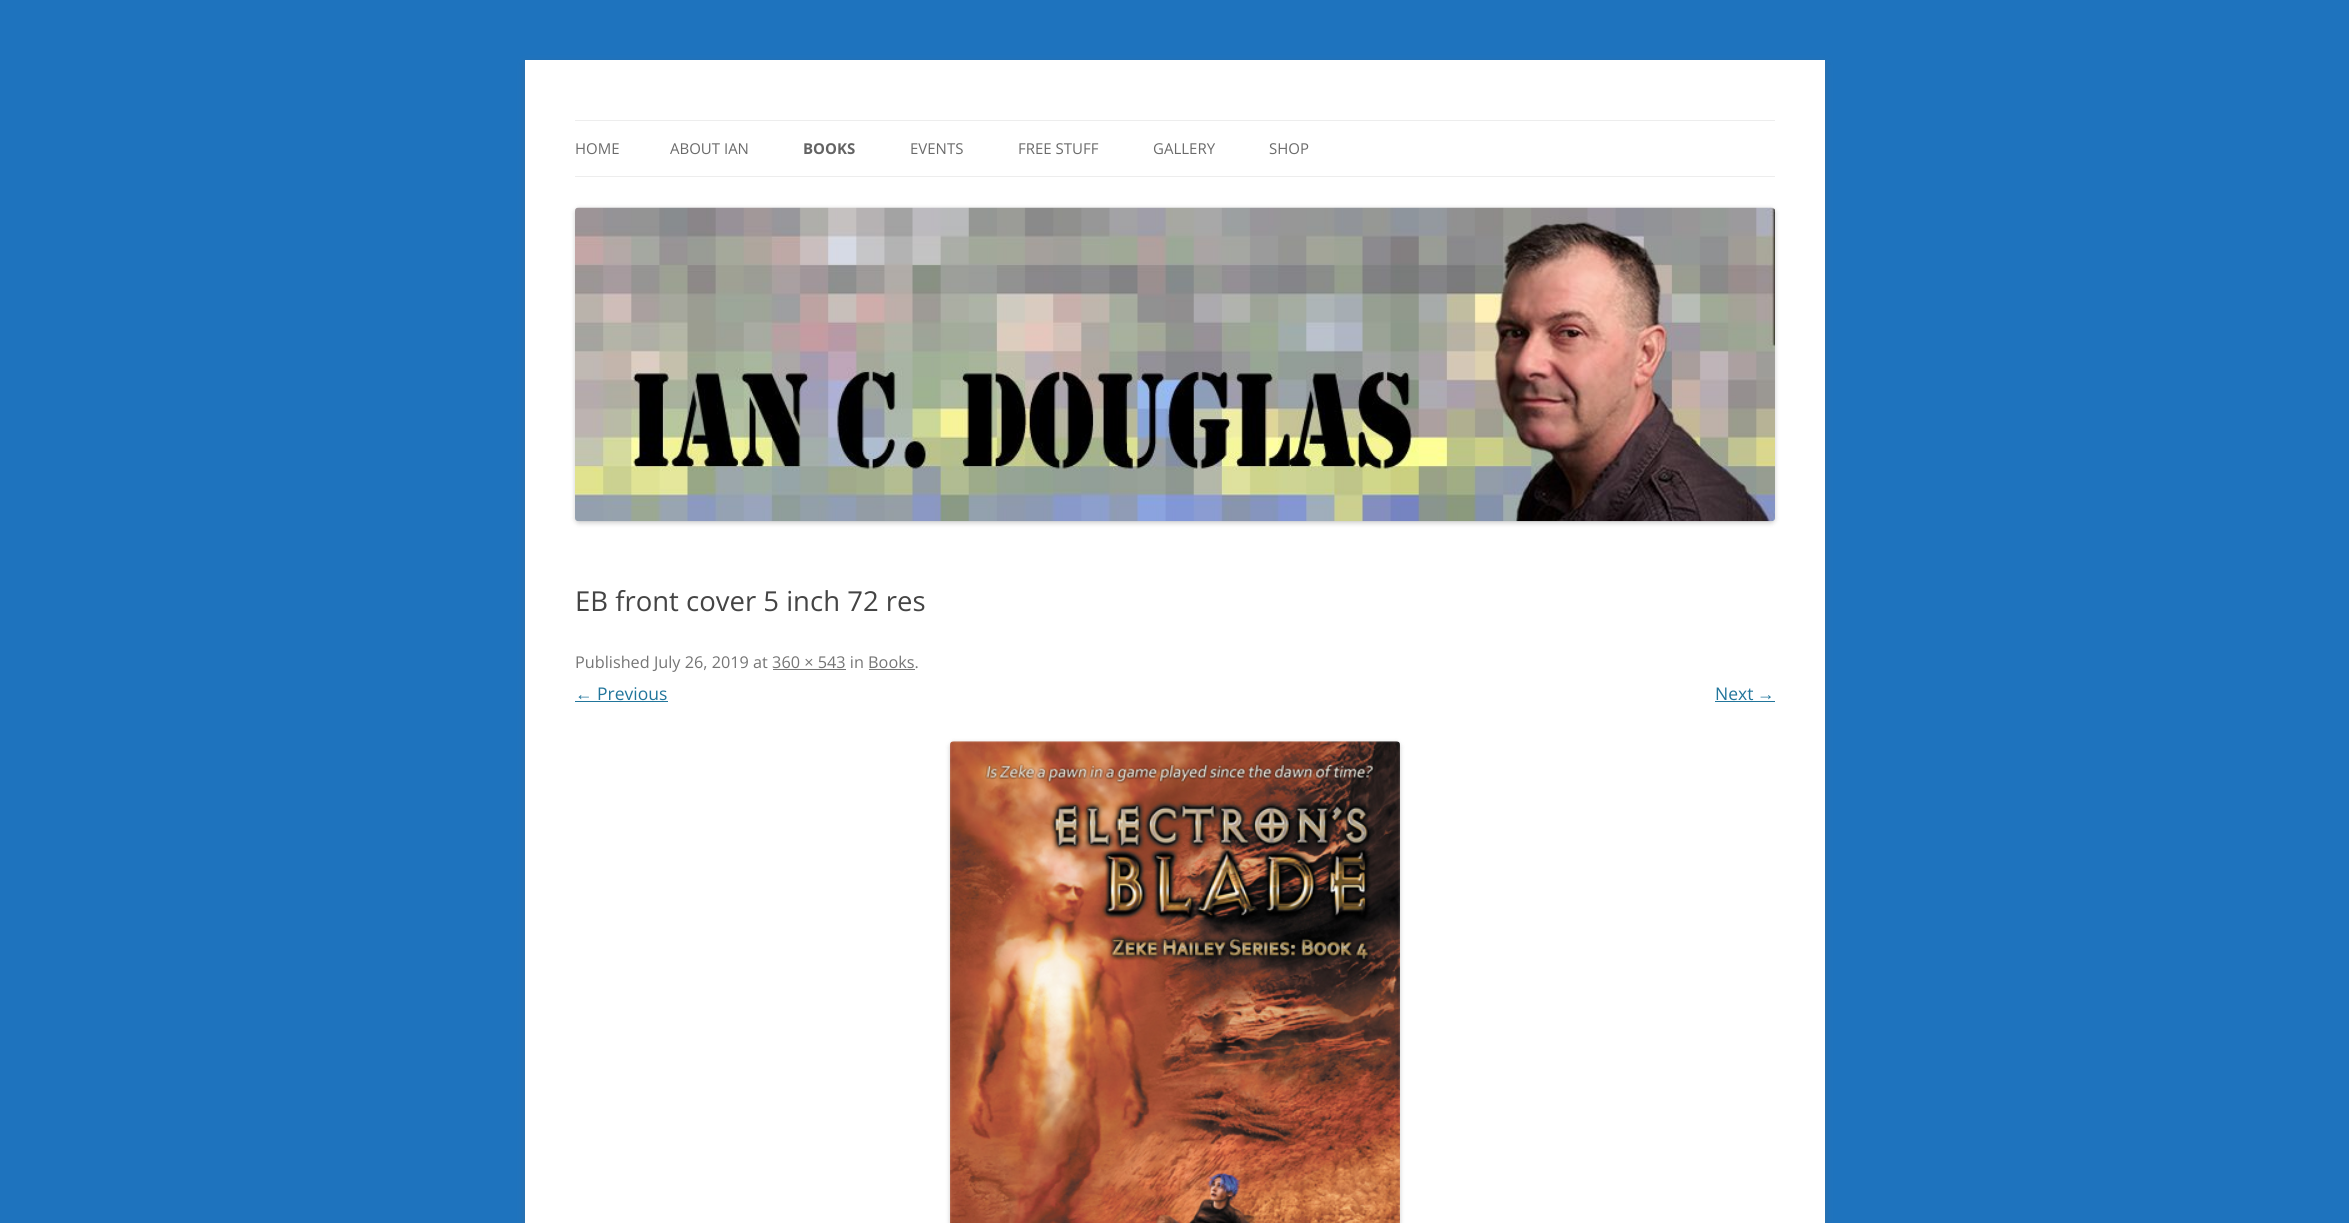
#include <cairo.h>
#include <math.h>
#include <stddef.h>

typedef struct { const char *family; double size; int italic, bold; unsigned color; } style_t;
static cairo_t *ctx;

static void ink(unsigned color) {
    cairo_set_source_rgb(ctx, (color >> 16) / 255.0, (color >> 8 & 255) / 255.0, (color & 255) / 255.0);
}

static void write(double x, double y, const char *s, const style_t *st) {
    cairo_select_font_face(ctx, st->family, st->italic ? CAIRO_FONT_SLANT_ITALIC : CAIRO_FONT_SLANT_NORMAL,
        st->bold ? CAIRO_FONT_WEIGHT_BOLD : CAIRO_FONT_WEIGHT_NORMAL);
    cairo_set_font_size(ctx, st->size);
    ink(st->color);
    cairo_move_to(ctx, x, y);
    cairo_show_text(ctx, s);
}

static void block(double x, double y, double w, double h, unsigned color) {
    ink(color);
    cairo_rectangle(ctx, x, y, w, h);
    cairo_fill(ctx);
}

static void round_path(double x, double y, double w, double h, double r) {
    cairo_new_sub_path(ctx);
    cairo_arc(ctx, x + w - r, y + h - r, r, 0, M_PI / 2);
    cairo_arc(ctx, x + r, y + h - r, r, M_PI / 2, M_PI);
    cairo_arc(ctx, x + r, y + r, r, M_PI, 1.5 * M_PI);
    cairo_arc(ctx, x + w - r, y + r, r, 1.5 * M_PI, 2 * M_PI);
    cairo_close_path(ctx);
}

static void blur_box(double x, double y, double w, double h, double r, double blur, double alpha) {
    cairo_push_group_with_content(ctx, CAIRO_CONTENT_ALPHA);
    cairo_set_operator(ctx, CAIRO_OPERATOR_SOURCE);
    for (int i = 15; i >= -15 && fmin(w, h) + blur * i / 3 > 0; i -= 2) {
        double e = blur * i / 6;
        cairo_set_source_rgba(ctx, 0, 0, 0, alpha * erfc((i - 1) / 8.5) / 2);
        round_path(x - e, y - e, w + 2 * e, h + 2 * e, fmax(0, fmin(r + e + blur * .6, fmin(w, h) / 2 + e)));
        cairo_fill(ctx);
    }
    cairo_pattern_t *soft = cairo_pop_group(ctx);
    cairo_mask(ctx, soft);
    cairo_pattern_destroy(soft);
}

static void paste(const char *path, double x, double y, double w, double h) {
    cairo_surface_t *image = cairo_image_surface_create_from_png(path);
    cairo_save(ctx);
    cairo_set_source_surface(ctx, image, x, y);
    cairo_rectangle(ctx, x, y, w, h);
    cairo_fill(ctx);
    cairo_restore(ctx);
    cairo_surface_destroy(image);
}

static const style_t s1 = {"Open Sans", 15, 0, 0, 0x6a6a6a};
static const style_t s2 = {"Open Sans", 15, 0, 1, 0x636363};
static const style_t s3 = {"Open Sans", 27.5, 0, 0, 0x444444};
static const style_t s4 = {"Open Sans", 16.25, 0, 0, 0x757575};
static const style_t s5 = {"Liberation Sans", 17.5, 0, 0, 0x21759b};
static const style_t s6 = {"Open Sans", 17.5, 0, 0, 0x21759b};

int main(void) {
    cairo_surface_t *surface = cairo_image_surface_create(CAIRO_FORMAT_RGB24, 2349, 1223);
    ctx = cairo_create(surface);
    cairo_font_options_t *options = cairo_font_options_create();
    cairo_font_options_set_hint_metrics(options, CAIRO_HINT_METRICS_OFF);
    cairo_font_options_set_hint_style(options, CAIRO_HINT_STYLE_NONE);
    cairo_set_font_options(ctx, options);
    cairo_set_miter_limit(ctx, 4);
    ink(0x1e73be);
    cairo_paint(ctx);
    ink(0x646464);
    blur_box(525, 63, 1300, 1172, 0, 4, 0.3);
    block(525, 60, 1300, 1163, 0xffffff);
    block(575, 120, 1200, 1, 0xededed);
    block(575, 176, 1200, 1, 0xededed);
    write(575, 154, "HOME", &s1);
    write(670, 154, "ABOUT IAN", &s1);
    write(803, 154, "BOOKS", &s2);
    write(910, 154, "EVENTS", &s1);
    write(1018, 154, "FREE STUFF", &s1);
    write(1153, 154, "GALLERY", &s1);
    write(1269, 154, "SHOP", &s1);
    ink(0x000000);
    blur_box(575, 209, 1200, 314, 4, 2.5, 0.2);
    paste("pic1.png", 575, 207, 1200, 315);
    write(575, 611, "EB front cover 5 inch 72 res", &s3);
    write(575, 668, "Published July 26, 2019 at 360 × 543 in Books.", &s4);
    block(773, 669, 73, 1, 0x757575);
    block(869, 669, 46, 1, 0x757575);
    write(575, 700, "←", &s5);
    block(575, 701, 93, 1, 0x21759b);
    write(597, 700, "Previous", &s6);
    write(1715, 700, "Next", &s6);
    write(1757, 700, "→", &s5);
    block(1715, 701, 60, 1, 0x21759b);
    ink(0x000000);
    blur_box(950, 743, 450, 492, 4, 2.5, 0.2);
    paste("pic2.png", 950, 741, 450, 482);
    cairo_surface_write_to_png(surface, "screenshot.png");
    cairo_font_options_destroy(options);
    cairo_destroy(ctx);
    cairo_surface_destroy(surface);
    return 0;
}
